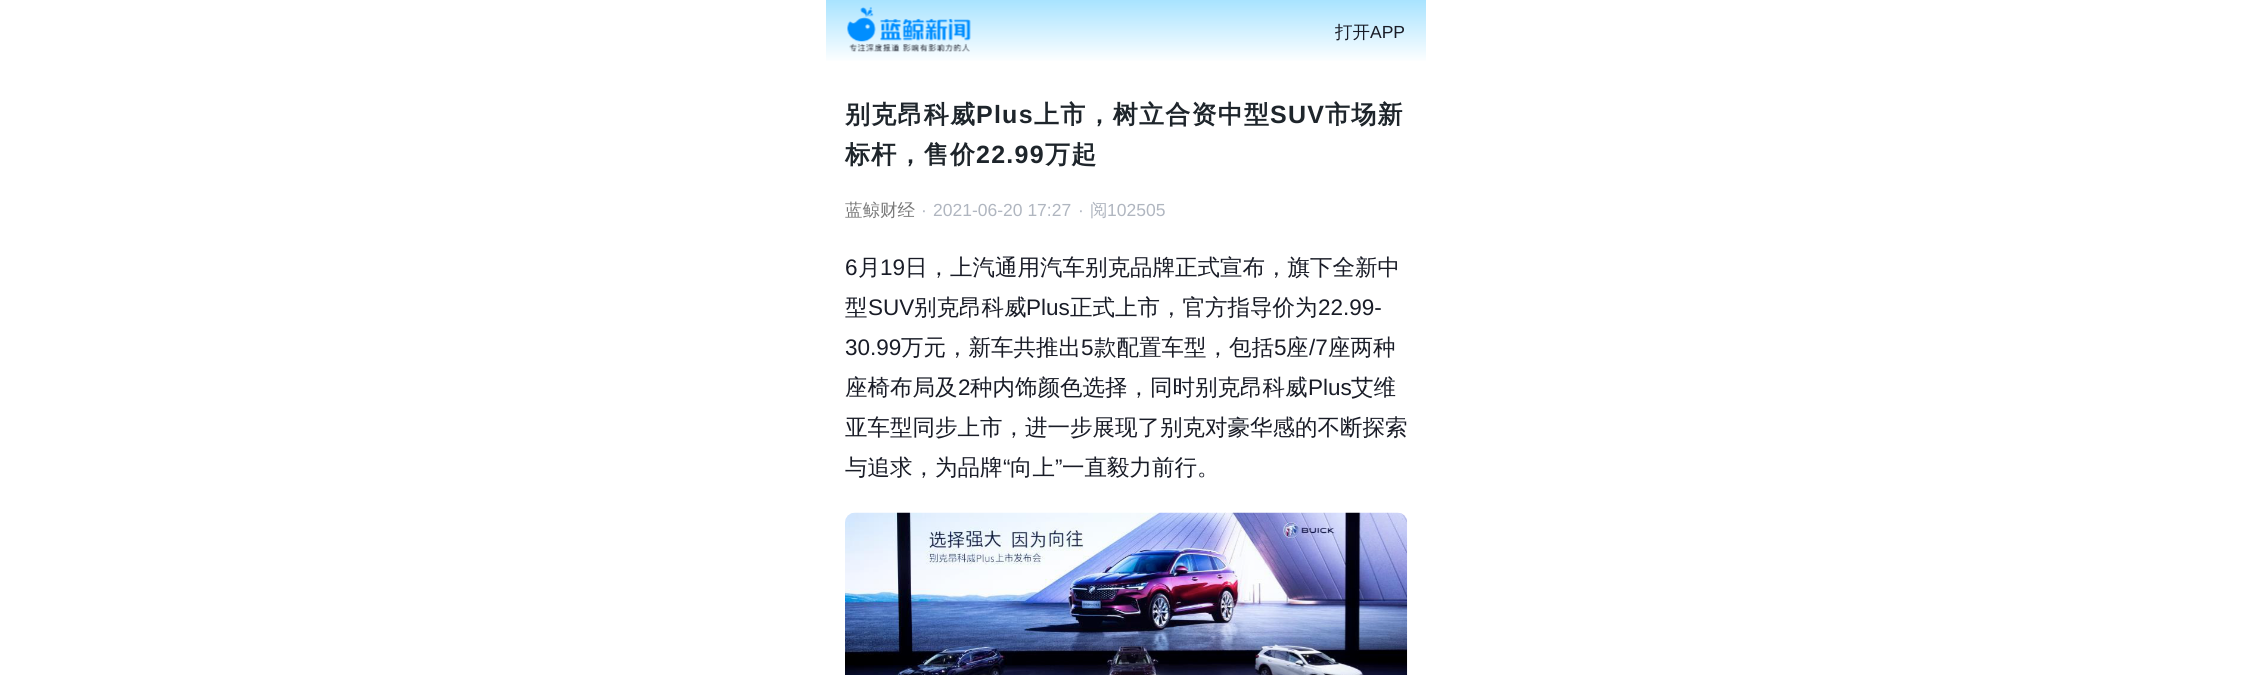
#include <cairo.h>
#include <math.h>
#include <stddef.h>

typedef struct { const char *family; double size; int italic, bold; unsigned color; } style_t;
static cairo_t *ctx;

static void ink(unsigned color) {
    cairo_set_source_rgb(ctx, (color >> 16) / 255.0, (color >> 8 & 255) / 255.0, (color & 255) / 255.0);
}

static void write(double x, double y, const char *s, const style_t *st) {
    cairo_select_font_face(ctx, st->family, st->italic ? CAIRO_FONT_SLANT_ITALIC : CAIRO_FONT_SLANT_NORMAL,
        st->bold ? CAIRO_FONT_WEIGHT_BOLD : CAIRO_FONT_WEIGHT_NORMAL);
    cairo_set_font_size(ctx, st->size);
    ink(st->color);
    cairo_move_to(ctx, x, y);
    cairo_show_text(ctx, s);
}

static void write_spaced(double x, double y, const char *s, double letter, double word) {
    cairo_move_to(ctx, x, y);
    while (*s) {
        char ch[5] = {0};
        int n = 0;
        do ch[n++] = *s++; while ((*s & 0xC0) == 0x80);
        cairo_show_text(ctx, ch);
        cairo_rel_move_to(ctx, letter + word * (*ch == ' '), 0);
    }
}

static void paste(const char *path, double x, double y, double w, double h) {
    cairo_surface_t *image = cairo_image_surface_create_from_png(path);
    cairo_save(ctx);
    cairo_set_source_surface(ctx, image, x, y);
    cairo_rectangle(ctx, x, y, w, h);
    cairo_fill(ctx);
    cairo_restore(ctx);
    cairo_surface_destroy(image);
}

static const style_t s1 = {"WenQuanYi Zen Hei Medium", 17.5, 0, 0, 0x191c27};
static const style_t s2 = {"Liberation Sans", 17.5, 0, 0, 0x191c27};
static const style_t s3 = {"WenQuanYi Zen Hei Medium", 17.5, 0, 0, 0x787878};
static const style_t s4 = {"Liberation Sans", 17.5, 0, 0, 0xb0b6c0};
static const style_t s5 = {"WenQuanYi Zen Hei Medium", 17.5, 0, 0, 0xb0b6c0};
static const style_t s6 = {"Liberation Sans", 22.5, 0, 0, 0x191c27};
static const style_t s7 = {"WenQuanYi Zen Hei Medium", 22.5, 0, 0, 0x191c27};

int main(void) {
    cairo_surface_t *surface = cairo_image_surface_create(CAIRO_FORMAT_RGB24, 2252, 675);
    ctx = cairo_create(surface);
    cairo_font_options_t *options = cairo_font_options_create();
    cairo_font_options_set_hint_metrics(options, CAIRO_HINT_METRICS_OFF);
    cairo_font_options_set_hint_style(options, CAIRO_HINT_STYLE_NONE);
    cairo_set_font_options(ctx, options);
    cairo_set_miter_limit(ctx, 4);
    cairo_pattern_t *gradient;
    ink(0xffffff);
    cairo_paint(ctx);
    gradient = cairo_pattern_create_linear(1126, 0, 1126, 63);
    cairo_pattern_add_color_stop_rgba(gradient, 0, 0.659, 0.89, 1, 1);
    cairo_pattern_add_color_stop_rgba(gradient, 1, 1, 1, 1, 1);
    cairo_set_source(ctx, gradient);
    cairo_pattern_destroy(gradient);
    cairo_rectangle(ctx, 826, 0, 600, 61);
    cairo_fill(ctx);
    paste("pic1.png", 847, 7, 124, 45);
    write(1335, 38, "打开", &s1);
    write(1370, 38, "APP", &s2);
    cairo_select_font_face(ctx, "WenQuanYi Zen Hei", CAIRO_FONT_SLANT_NORMAL, CAIRO_FONT_WEIGHT_BOLD);
    cairo_set_font_size(ctx, 25);
    ink(0x1e252b);
    write_spaced(845, 123, "别克昂科威", 1.25, 0);
    cairo_select_font_face(ctx, "Liberation Sans", CAIRO_FONT_SLANT_NORMAL, CAIRO_FONT_WEIGHT_BOLD);
    write_spaced(976, 123, "Plus", 1.25, 0);
    cairo_select_font_face(ctx, "WenQuanYi Zen Hei", CAIRO_FONT_SLANT_NORMAL, CAIRO_FONT_WEIGHT_BOLD);
    write_spaced(1034, 123, "上市，树立合资中型", 1.25, 0);
    cairo_select_font_face(ctx, "Liberation Sans", CAIRO_FONT_SLANT_NORMAL, CAIRO_FONT_WEIGHT_BOLD);
    write_spaced(1270, 123, "SUV", 1.25, 0);
    cairo_select_font_face(ctx, "WenQuanYi Zen Hei", CAIRO_FONT_SLANT_NORMAL, CAIRO_FONT_WEIGHT_BOLD);
    write_spaced(1325, 123, "市场新", 1.25, 0);
    write_spaced(845, 163, "标杆，售价", 1.25, 0);
    cairo_select_font_face(ctx, "Liberation Sans", CAIRO_FONT_SLANT_NORMAL, CAIRO_FONT_WEIGHT_BOLD);
    write_spaced(976, 163, "22.99", 1.25, 0);
    cairo_select_font_face(ctx, "WenQuanYi Zen Hei", CAIRO_FONT_SLANT_NORMAL, CAIRO_FONT_WEIGHT_BOLD);
    write_spaced(1045, 163, "万起", 1.25, 0);
    write(845, 216, "蓝鲸财经", &s3);
    write(921, 216, "·", &s4);
    write(933, 216, "2021-06-20 17:27", &s4);
    write(1078, 216, "·", &s4);
    write(1090, 216, "阅", &s5);
    write(1107, 216, "102505", &s4);
    write(845, 275, "6", &s6);
    write(858, 275, "月", &s7);
    write(880, 275, "19", &s6);
    write(905, 275, "日，上汽通用汽车别克品牌正式宣布，旗下全新中", &s7);
    write(845, 315, "型", &s7);
    write(868, 315, "SUV", &s6);
    write(914, 315, "别克昂科威", &s7);
    write(1026, 315, "Plus", &s6);
    write(1070, 315, "正式上市，官方指导价为", &s7);
    write(1318, 315, "22.99-", &s6);
    write(845, 355, "30.99", &s6);
    write(901, 355, "万元，新车共推出", &s7);
    write(1081, 355, "5", &s6);
    write(1094, 355, "款配置车型，包括", &s7);
    write(1274, 355, "5", &s6);
    write(1286, 355, "座", &s7);
    write(1309, 355, "/7", &s6);
    write(1328, 355, "座两种", &s7);
    write(845, 395, "座椅布局及", &s7);
    write(958, 395, "2", &s6);
    write(970, 395, "种内饰颜色选择，同时别克昂科威", &s7);
    write(1308, 395, "Plus", &s6);
    write(1351, 395, "艾维", &s7);
    write(845, 435, "亚车型同步上市，进一步展现了别克对豪华感的不断探索", &s7);
    write(845, 475, "与追求，为品牌", &s7);
    write(1003, 475, "“", &s6);
    write(1010, 475, "向上", &s7);
    write(1055, 475, "”", &s6);
    write(1062, 475, "一直毅力前行。", &s7);
    paste("pic2.png", 845, 512, 563, 163);
    cairo_surface_write_to_png(surface, "screenshot.png");
    cairo_font_options_destroy(options);
    cairo_destroy(ctx);
    cairo_surface_destroy(surface);
    return 0;
}
